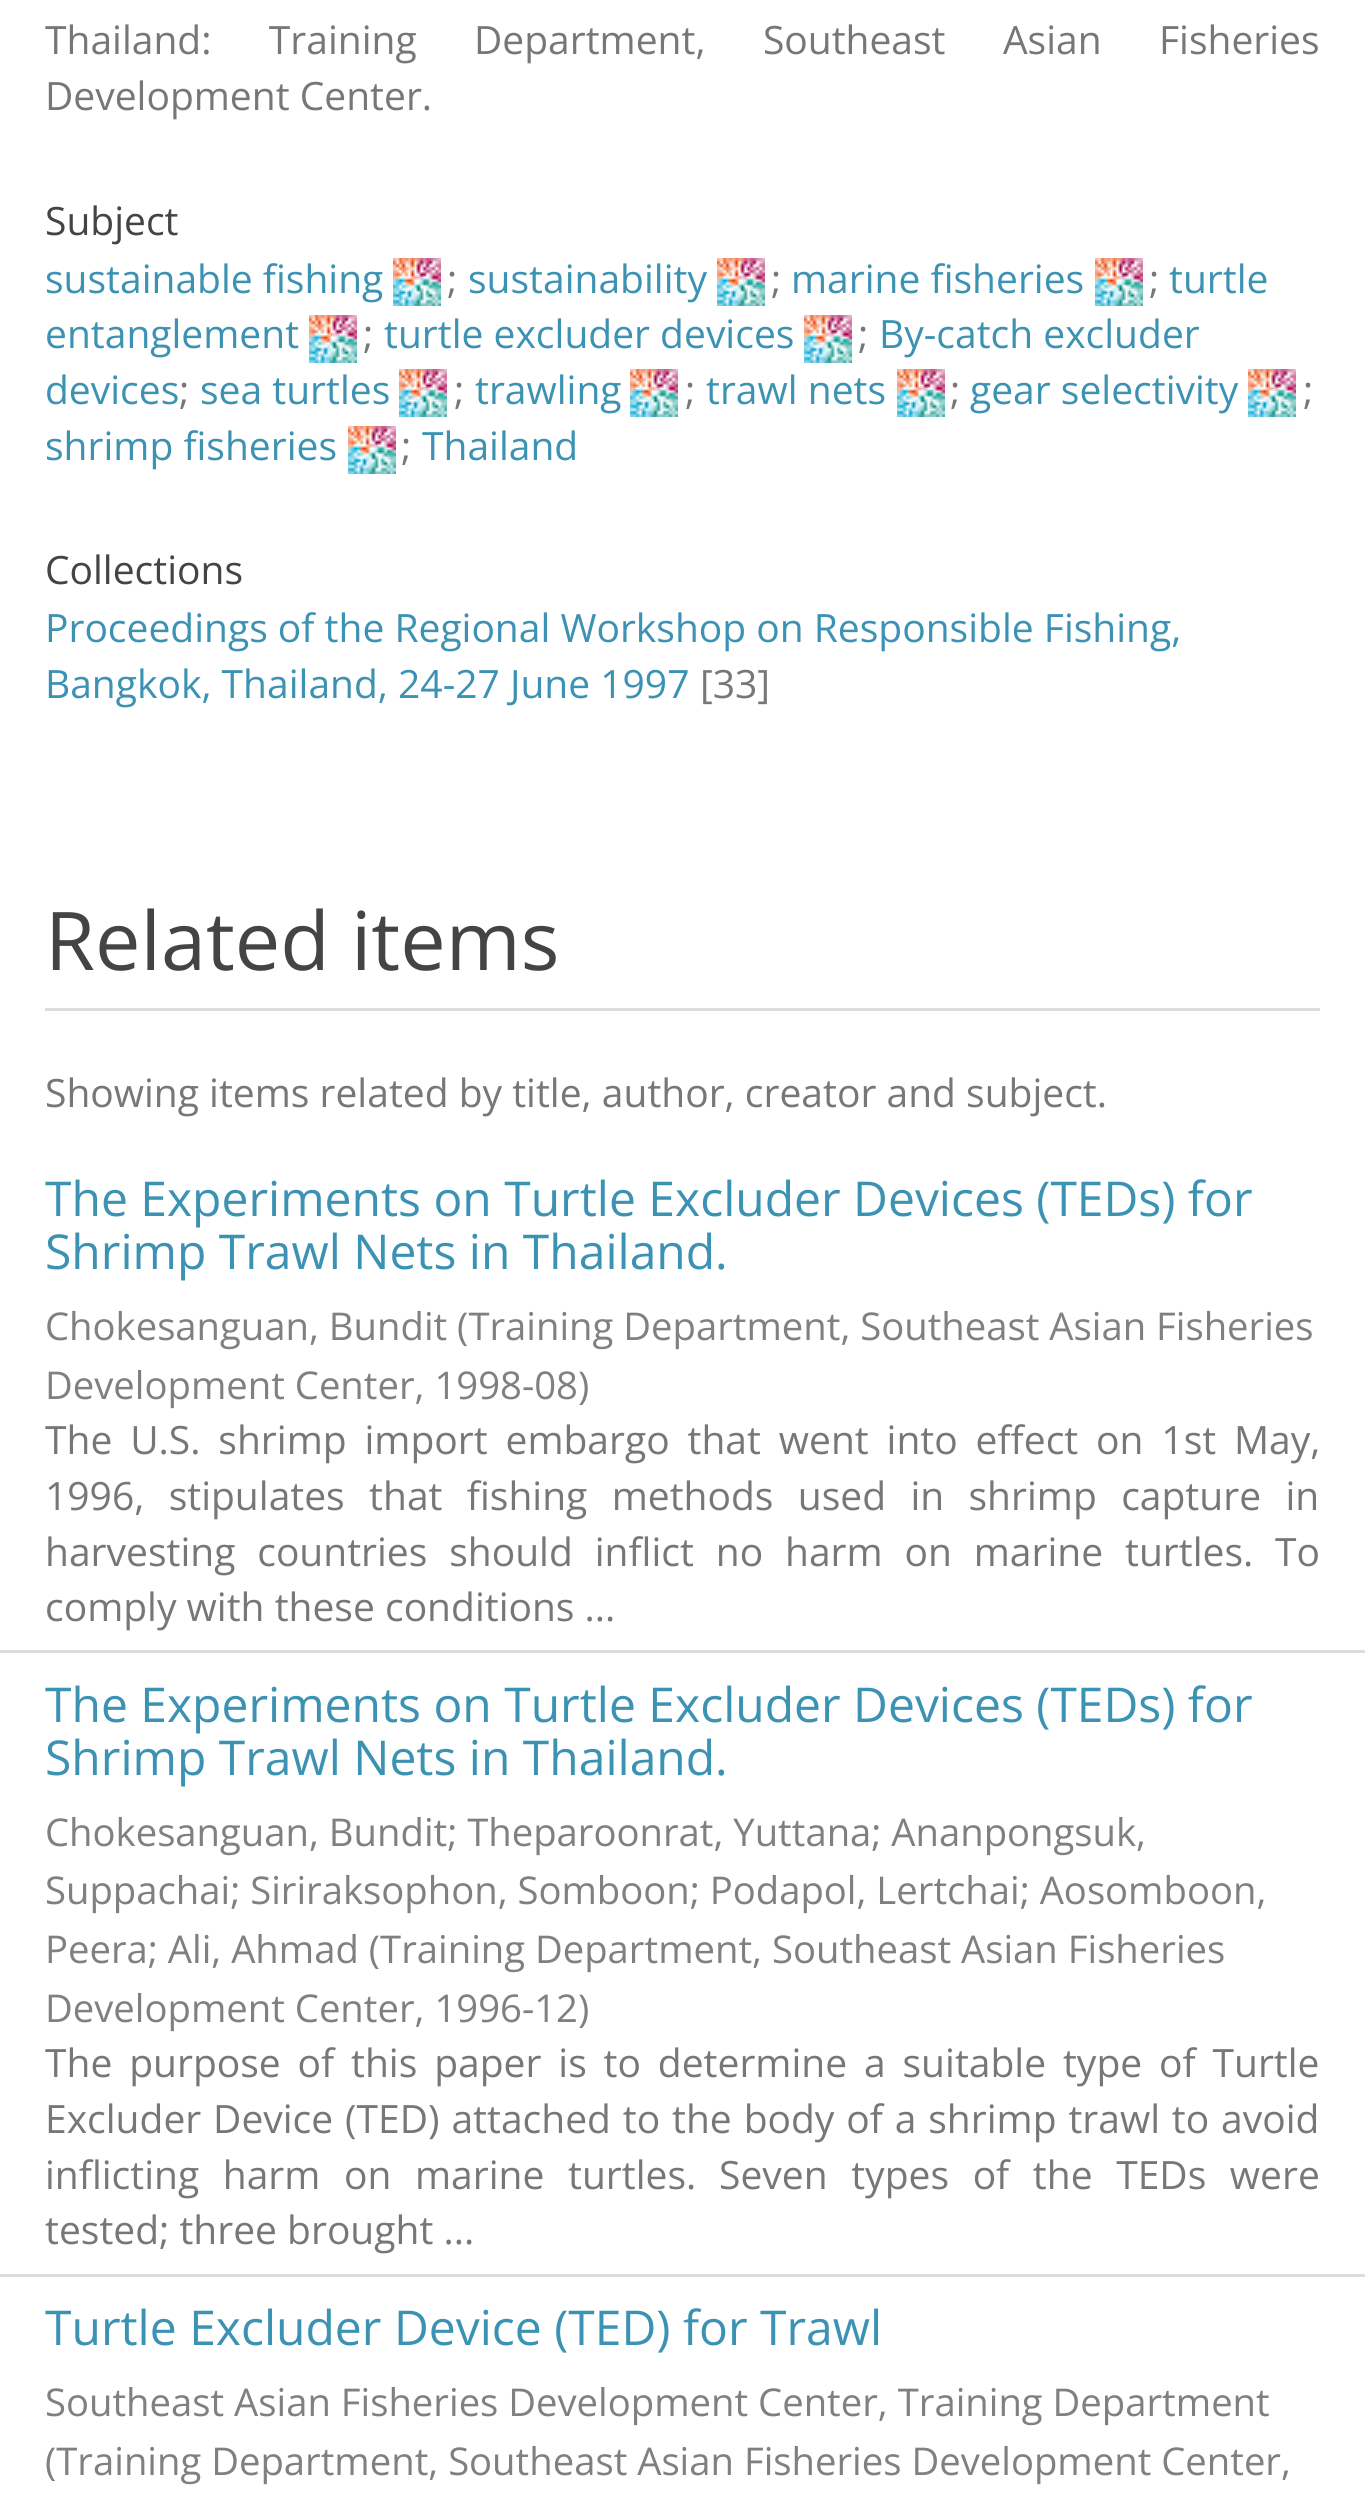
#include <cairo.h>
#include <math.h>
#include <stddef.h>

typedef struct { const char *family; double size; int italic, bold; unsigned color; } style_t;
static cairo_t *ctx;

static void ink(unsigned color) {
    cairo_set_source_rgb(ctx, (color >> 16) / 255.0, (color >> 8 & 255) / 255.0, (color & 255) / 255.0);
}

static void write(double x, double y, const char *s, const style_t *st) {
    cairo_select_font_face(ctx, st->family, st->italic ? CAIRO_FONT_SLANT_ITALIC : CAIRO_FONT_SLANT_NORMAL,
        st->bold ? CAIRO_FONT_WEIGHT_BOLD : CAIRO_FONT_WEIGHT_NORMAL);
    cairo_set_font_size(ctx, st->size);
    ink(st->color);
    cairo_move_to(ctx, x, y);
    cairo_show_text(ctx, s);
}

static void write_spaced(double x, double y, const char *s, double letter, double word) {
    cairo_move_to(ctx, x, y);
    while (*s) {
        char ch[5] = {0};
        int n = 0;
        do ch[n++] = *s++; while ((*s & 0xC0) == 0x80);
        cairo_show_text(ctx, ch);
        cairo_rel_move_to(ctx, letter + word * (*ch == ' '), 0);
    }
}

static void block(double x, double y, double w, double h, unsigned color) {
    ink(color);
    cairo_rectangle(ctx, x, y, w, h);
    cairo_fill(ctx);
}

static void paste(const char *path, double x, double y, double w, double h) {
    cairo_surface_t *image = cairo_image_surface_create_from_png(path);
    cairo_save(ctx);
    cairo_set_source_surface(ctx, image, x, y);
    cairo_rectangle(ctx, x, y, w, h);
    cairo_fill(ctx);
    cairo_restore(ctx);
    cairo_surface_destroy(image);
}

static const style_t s1 = {"Open Sans", 39, 0, 0, 0x777777};
static const style_t s2 = {"Open Sans", 39, 0, 0, 0x444444};
static const style_t s3 = {"Open Sans", 39, 0, 0, 0x3c92b3};
static const style_t s4 = {"Open Sans", 81, 0, 0, 0x444444};
static const style_t s5 = {"Open Sans", 48, 0, 0, 0x3c92b3};
static const style_t s6 = {"Open Sans", 38.25, 0, 0, 0x808080};

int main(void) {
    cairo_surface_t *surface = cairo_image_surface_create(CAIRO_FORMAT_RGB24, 1365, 2514);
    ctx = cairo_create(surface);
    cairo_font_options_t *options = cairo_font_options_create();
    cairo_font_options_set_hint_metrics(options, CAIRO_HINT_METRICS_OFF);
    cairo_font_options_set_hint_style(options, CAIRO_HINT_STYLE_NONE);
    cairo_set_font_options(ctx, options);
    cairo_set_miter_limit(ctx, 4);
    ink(0xffffff);
    cairo_paint(ctx);
    cairo_select_font_face(ctx, "Open Sans", CAIRO_FONT_SLANT_NORMAL, CAIRO_FONT_WEIGHT_NORMAL);
    cairo_set_font_size(ctx, 39);
    ink(0x777777);
    write_spaced(45, 54, "Thailand: Training Department, Southeast Asian Fisheries", 0, 47.25);
    write(45, 110, "Development Center.", &s1);
    write(45, 235, "Subject", &s2);
    write(45, 293, "sustainable fishing", &s3);
    paste("pic1.png", 393, 258, 48, 48);
    write(447, 293, ";", &s1);
    write(468, 293, "sustainability", &s3);
    paste("pic1.png", 717, 258, 48, 48);
    write(771, 293, ";", &s1);
    write(791, 293, "marine fisheries", &s3);
    paste("pic1.png", 1095, 258, 48, 48);
    write(1149, 293, ";", &s1);
    write(1169, 293, "turtle", &s3);
    write(45, 348, "entanglement", &s3);
    paste("pic1.png", 309, 315, 48, 48);
    write(363, 348, ";", &s1);
    write(384, 348, "turtle excluder devices", &s3);
    paste("pic2.png", 804, 315, 48, 48);
    write(858, 348, ";", &s1);
    write(879, 348, "By-catch excluder", &s3);
    write(45, 404, "devices", &s3);
    write(179, 404, ";", &s1);
    write(200, 404, "sea turtles", &s3);
    paste("pic1.png", 399, 369, 48, 48);
    write(454, 404, ";", &s1);
    write(475, 404, "trawling", &s3);
    paste("pic1.png", 630, 369, 48, 48);
    write(685, 404, ";", &s1);
    write(706, 404, "trawl nets", &s3);
    paste("pic1.png", 897, 369, 48, 48);
    write(950, 404, ";", &s1);
    write(970, 404, "gear selectivity", &s3);
    paste("pic1.png", 1248, 369, 48, 48);
    write(1303, 404, ";", &s1);
    write(45, 460, "shrimp fisheries", &s3);
    paste("pic1.png", 348, 426, 48, 48);
    write(401, 460, ";", &s1);
    write(422, 460, "Thailand", &s3);
    write(45, 584, "Collections", &s2);
    write(45, 642, "Proceedings of the Regional Workshop on Responsible Fishing,", &s3);
    write(45, 698, "Bangkok, Thailand, 24-27 June 1997", &s3);
    write(700, 698, "[33]", &s1);
    block(45, 1008, 1275, 3, 0xdddddd);
    write(45, 970, "Related items", &s4);
    write(45, 1107, "Showing items related by title, author, creator and subject.", &s1);
    block(0, 1650, 1365, 3, 0xdddddd);
    write(45, 1216, "The Experiments on Turtle Excluder Devices (TEDs) for", &s5);
    write(45, 1269, "Shrimp Trawl Nets in Thailand.", &s5);
    write(45, 1340, "Chokesanguan, Bundit (Training Department, Southeast Asian Fisheries", &s6);
    write(45, 1399, "Development Center, 1998-08)", &s6);
    cairo_set_font_size(ctx, 39);
    ink(0x777777);
    write_spaced(45, 1454, "The U.S. shrimp import embargo that went into effect on 1st May,", 0, 7.75);
    write_spaced(45, 1510, "1996, stipulates that fishing methods used in shrimp capture in", 0, 14.25);
    write_spaced(45, 1566, "harvesting countries should inflict no harm on marine turtles.", 0, 11.75);
    write(1275, 1566, "To", &s1);
    write(45, 1621, "comply with these conditions ...", &s1);
    block(0, 2274, 1365, 3, 0xdddddd);
    write(45, 1722, "The Experiments on Turtle Excluder Devices (TEDs) for", &s5);
    write(45, 1775, "Shrimp Trawl Nets in Thailand.", &s5);
    write(45, 1846, "Chokesanguan, Bundit; Theparoonrat, Yuttana; Ananpongsuk,", &s6);
    write(45, 1904, "Suppachai; Siriraksophon, Somboon; Podapol, Lertchai; Aosomboon,", &s6);
    write(45, 1963, "Peera; Ali, Ahmad (Training Department, Southeast Asian Fisheries", &s6);
    write(45, 2022, "Development Center, 1996-12)", &s6);
    cairo_set_font_size(ctx, 39);
    ink(0x777777);
    write_spaced(45, 2077, "The purpose of this paper is to determine a suitable type of Turtle", 0, 6.75);
    write_spaced(45, 2133, "Excluder Device (TED) attached to the body of a shrimp trawl to avoid", 0, 1.75);
    write_spaced(45, 2189, "inflicting harm on marine turtles.", 0, 13.5);
    write_spaced(719, 2189, "Seven types of the TEDs were", 0, 13.5);
    write(45, 2244, "tested; three brought ...", &s1);
    write(45, 2345, "Turtle Excluder Device (TED) for Trawl", &s5);
    write(45, 2416, "Southeast Asian Fisheries Development Center, Training Department", &s6);
    write(45, 2475, "(Training Department, Southeast Asian Fisheries Development Center,", &s6);
    cairo_surface_write_to_png(surface, "screenshot.png");
    cairo_font_options_destroy(options);
    cairo_destroy(ctx);
    cairo_surface_destroy(surface);
    return 0;
}
